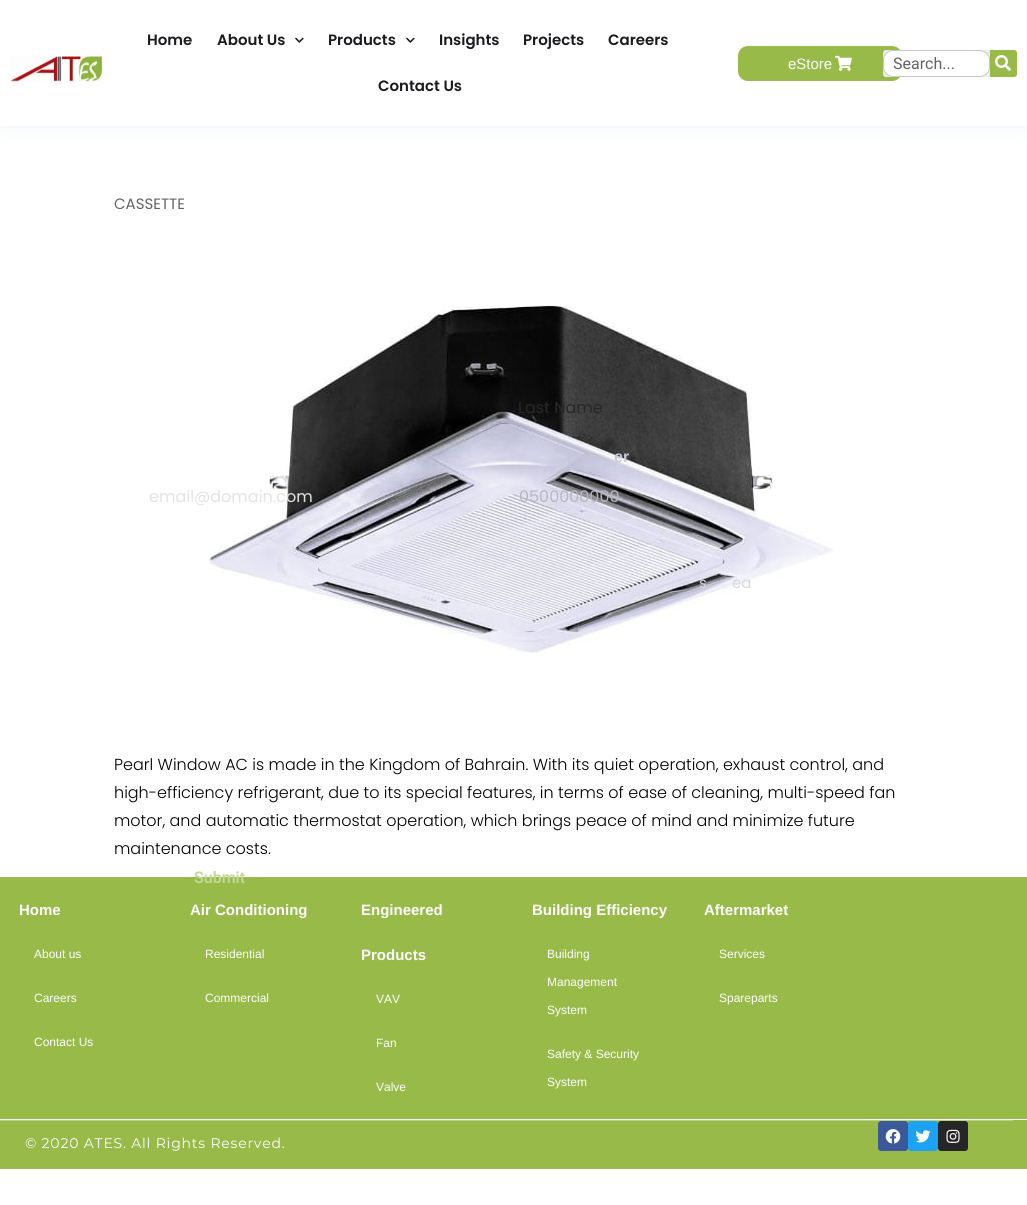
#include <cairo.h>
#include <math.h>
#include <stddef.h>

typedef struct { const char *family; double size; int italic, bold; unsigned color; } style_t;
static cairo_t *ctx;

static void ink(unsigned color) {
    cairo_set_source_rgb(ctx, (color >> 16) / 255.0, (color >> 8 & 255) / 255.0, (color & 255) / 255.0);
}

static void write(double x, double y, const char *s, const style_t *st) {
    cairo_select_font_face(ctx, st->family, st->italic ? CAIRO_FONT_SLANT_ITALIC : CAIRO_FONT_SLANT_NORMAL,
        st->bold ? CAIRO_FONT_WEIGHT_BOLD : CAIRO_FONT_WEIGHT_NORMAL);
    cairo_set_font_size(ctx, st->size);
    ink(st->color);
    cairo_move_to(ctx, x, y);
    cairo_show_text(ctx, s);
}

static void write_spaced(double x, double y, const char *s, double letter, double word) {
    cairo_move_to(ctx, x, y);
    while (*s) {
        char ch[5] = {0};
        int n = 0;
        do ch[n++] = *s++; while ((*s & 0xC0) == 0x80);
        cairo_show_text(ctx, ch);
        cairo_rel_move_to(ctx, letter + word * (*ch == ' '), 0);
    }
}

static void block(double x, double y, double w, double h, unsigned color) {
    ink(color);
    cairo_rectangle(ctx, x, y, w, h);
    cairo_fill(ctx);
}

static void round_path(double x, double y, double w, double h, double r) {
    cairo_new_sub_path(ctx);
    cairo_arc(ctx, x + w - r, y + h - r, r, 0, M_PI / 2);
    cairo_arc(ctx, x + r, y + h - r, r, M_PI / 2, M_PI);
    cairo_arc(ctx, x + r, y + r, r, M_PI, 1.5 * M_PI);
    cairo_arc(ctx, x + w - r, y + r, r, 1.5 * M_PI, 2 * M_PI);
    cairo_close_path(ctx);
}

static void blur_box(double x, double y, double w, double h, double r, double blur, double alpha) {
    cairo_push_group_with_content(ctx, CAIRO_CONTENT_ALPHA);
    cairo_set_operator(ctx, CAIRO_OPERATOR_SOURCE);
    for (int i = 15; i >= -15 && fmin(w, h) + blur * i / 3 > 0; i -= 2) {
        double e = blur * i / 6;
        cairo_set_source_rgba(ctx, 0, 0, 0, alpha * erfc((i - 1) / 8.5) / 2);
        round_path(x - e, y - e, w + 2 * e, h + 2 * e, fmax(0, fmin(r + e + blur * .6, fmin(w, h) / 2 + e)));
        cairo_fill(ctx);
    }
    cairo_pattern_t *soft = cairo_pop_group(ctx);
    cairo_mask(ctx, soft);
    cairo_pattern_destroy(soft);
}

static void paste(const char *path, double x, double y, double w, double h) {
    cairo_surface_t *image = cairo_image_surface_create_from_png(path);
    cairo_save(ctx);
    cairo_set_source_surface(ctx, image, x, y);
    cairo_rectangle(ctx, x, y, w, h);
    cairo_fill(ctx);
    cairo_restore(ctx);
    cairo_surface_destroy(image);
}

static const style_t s1 = {"Poppins SemiBold", 15, 0, 0, 0x1a1b1e};
static const style_t s2 = {"Liberation Sans", 15, 0, 0, 0xffffff};
static const style_t s3 = {"Roboto", 16, 0, 0, 0x626365};
static const style_t s4 = {"Poppins", 15, 0, 0, 0x626365};
static const style_t s5 = {"Poppins Light", 16, 0, 0, 0x000000};
static const style_t s6 = {"Poppins", 16, 0, 0, 0x272727};
static const style_t s7 = {"Poppins", 16, 0, 0, 0xe3e3e3};
static const style_t s8 = {"Liberation Sans", 16, 0, 1, 0xc9c9da};
static const style_t s9 = {"Poppins", 16, 0, 0, 0xb7b6c2};
static const style_t s10 = {"Liberation Sans", 16, 0, 1, 0xe3e3e3};
static const style_t s11 = {"Poppins", 15, 0, 0, 0xd6d6df};
static const style_t s12 = {"Roboto SemiBold", 16, 0, 0, 0xc3d796};
static const style_t s13 = {"Liberation Sans", 15, 0, 1, 0xffffff};
static const style_t s14 = {"Liberation Sans", 12, 0, 0, 0xffffff};

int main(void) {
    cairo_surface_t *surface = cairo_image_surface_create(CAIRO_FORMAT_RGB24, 1027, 1205);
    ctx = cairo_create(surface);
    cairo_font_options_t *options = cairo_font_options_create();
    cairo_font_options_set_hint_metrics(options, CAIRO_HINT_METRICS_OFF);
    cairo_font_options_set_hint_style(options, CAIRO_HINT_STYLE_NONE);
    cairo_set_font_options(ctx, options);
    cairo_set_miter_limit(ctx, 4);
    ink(0xffffff);
    cairo_paint(ctx);
    ink(0x47889c);
    blur_box(0, 0, 1027, 126, 0, 11, 0.09);
    block(0, 0, 1027, 126, 0xffffff);
    paste("pic1.png", 10, 56, 92, 26);
    write(147, 45, "Home", &s1);
    write(217, 45, "About Us", &s1);
    paste("pic2.png", 295, 37, 9, 6);
    write(328, 45, "Products", &s1);
    paste("pic2.png", 406, 37, 9, 6);
    write(439, 45, "Insights", &s1);
    write(523, 45, "Projects", &s1);
    write(608, 45, "Careers", &s1);
    write(378, 91, "Contact Us", &s1);
    ink(0x97ba49);
    round_path(738, 46, 164, 35, 10);
    cairo_fill(ctx);
    write(788, 69, "eStore", &s2);
    paste("pic3.png", 835, 55, 17, 16);
    ink(0xeceeef);
    round_path(883, 50, 134, 27, 3);
    cairo_fill(ctx);
    ink(0xffffff);
    round_path(883.5, 50.5, 106, 26, 9.5);
    cairo_fill_preserve(ctx);
    ink(0xc4c6d1);
    cairo_set_line_width(ctx, 1);
    cairo_stroke(ctx);
    write(893, 69, "Search...", &s3);
    ink(0x97ba49);
    cairo_new_path(ctx);
    cairo_move_to(ctx, 990, 50);
    cairo_line_to(ctx, 1014, 50);
    cairo_curve_to(ctx, 1015.5, 50, 1017, 51.5, 1017, 53);
    cairo_line_to(ctx, 1017, 74);
    cairo_curve_to(ctx, 1017, 75.5, 1015.5, 77, 1014, 77);
    cairo_line_to(ctx, 990, 77);
    cairo_close_path(ctx);
    cairo_fill(ctx);
    paste("pic4.png", 995, 55, 16, 16);
    write(114, 209, "CASSETTE", &s4);
    paste("pic5.png", 209, 305, 625, 348);
    write(114, 770, "Pearl Window AC is made in the Kingdom of Bahrain. With its quiet operation, exhaust control, and", &s5);
    write(114, 798, "high-efficiency refrigerant, due to its special features, in terms of ease of cleaning, multi-speed fan", &s5);
    write(114, 826, "motor, and automatic thermostat operation, which brings peace of mind and minimize future", &s5);
    write(114, 854, "maintenance costs.", &s5);
    write(518, 413, "Last Name", &s6);
    write(149, 502, "email@domain.com", &s7);
    write(614, 462, "er", &s8);
    write(519, 502, "0500000000", &s9);
    write(615, 550, "*", &s10);
    write(699, 588, "s", &s11);
    write(732, 588, "ea", &s11);
    block(0, 877, 1027, 242, 0x97ba49);
    write(194, 883, "Submit", &s12);
    write(19, 915, "Home", &s13);
    write(34, 958, "About us", &s14);
    write(34, 1002, "Careers", &s14);
    write(34, 1046, "Contact Us", &s14);
    write(190, 915, "Air Conditioning", &s13);
    write(205, 958, "Residential", &s14);
    write(205, 1002, "Commercial", &s14);
    write(361, 915, "Engineered", &s13);
    write(361, 960, "Products", &s13);
    write(376, 1003, "VAV", &s14);
    write(376, 1047, "Fan", &s14);
    write(376, 1091, "Valve", &s14);
    write(532, 915, "Building Efficiency", &s13);
    write(547, 958, "Building", &s14);
    write(547, 986, "Management", &s14);
    write(547, 1014, "System", &s14);
    write(547, 1058, "Safety & Security", &s14);
    write(547, 1086, "System", &s14);
    write(704, 915, "Aftermarket", &s13);
    write(719, 958, "Services", &s14);
    write(719, 1002, "Spareparts", &s14);
    block(0, 1120, 1027, 49, 0x97ba49);
    block(0, 1120, 1013, 1, 0xb6cf80);
    cairo_select_font_face(ctx, "Montserrat", CAIRO_FONT_SLANT_NORMAL, CAIRO_FONT_WEIGHT_NORMAL);
    cairo_set_font_size(ctx, 14);
    ink(0xffffff);
    write_spaced(25, 1148, "© 2020 ATES. All Rights Reserved.", 0.8, 0);
    ink(0x3b5998);
    round_path(878, 1121, 30, 30, 3);
    cairo_fill(ctx);
    paste("pic6.png", 885, 1129, 16, 15);
    ink(0x1da1f2);
    round_path(908, 1121, 30, 30, 3);
    cairo_fill(ctx);
    paste("pic7.png", 915, 1130, 16, 13);
    ink(0x262626);
    round_path(938, 1121, 30, 30, 3);
    cairo_fill(ctx);
    paste("pic8.png", 946, 1129, 14, 14);
    cairo_surface_write_to_png(surface, "screenshot.png");
    cairo_font_options_destroy(options);
    cairo_destroy(ctx);
    cairo_surface_destroy(surface);
    return 0;
}
